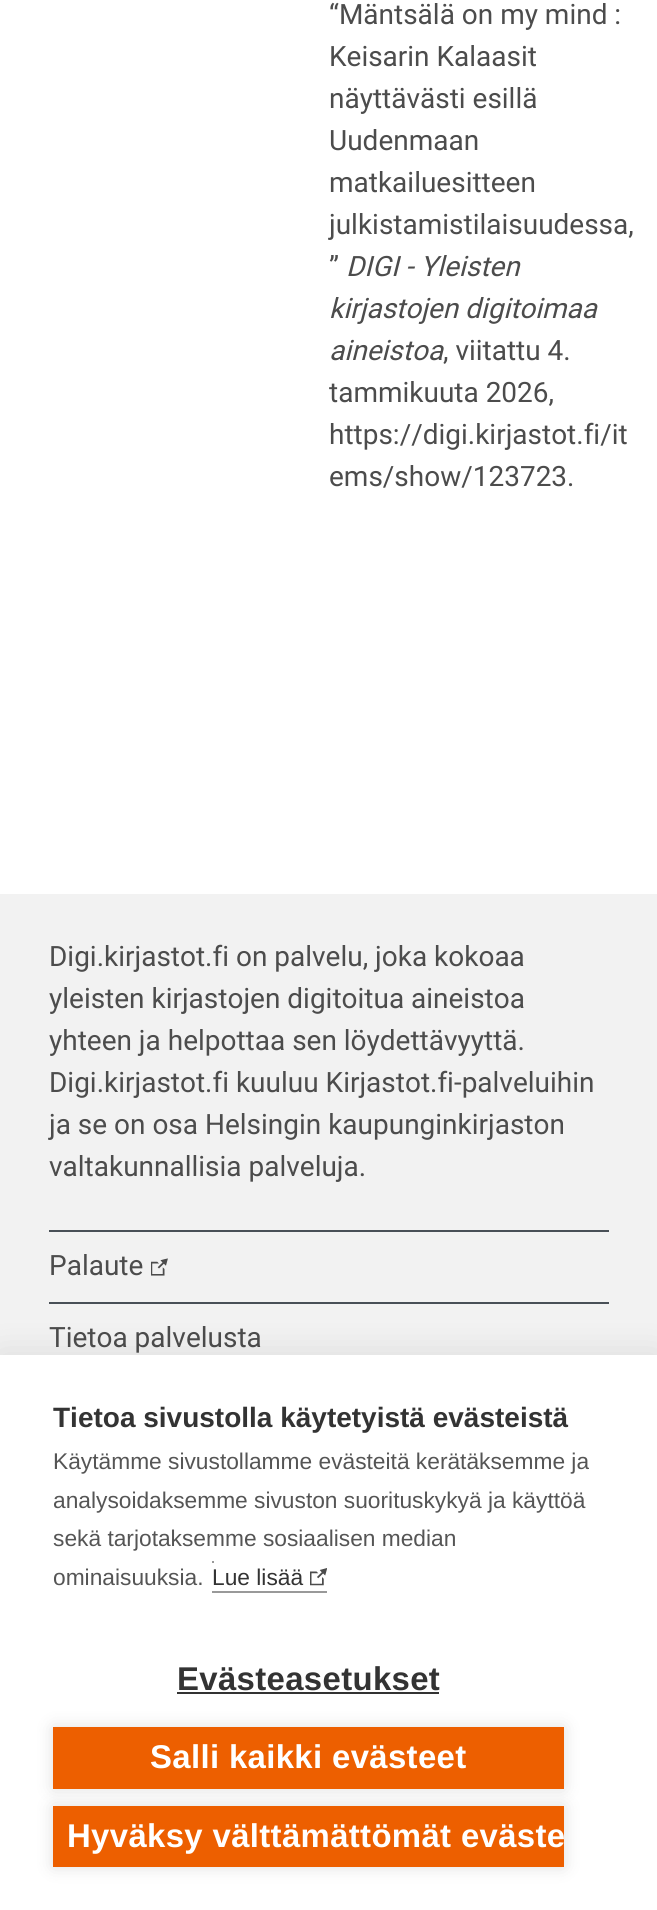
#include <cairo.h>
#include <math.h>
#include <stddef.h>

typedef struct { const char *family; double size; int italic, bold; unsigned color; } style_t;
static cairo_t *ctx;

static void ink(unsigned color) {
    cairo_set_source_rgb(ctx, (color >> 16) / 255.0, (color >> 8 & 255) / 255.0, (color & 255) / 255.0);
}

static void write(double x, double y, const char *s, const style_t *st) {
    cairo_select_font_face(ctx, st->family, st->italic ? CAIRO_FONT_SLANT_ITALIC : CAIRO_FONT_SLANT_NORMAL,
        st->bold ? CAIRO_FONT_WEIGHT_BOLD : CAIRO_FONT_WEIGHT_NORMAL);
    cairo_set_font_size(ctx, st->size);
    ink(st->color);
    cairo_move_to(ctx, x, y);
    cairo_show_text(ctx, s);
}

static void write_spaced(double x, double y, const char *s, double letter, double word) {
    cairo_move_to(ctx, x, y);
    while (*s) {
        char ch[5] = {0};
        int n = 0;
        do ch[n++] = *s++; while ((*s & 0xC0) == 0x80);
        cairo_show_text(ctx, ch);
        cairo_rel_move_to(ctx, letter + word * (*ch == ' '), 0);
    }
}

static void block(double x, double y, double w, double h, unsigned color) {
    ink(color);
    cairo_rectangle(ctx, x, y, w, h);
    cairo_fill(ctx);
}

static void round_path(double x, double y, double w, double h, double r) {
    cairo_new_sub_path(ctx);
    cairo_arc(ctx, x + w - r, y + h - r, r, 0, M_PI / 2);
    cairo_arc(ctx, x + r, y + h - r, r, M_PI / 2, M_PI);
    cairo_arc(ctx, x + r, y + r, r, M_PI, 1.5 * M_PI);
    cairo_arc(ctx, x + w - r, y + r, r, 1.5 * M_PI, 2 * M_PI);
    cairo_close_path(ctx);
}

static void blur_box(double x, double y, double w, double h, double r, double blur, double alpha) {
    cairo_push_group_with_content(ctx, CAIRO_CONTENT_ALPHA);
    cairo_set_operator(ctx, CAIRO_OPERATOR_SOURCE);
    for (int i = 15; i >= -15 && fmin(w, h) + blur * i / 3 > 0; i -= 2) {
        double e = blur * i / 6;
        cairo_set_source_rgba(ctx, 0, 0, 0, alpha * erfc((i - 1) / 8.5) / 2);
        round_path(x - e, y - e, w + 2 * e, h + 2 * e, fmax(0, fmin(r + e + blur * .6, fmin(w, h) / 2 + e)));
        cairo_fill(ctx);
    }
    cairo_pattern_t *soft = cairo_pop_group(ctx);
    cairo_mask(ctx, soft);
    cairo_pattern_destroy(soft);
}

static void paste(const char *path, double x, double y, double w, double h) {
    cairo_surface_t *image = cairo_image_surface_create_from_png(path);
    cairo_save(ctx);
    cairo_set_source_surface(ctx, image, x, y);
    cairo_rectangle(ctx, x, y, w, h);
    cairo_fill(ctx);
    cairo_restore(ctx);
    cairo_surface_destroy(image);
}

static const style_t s1 = {"Roboto", 28, 0, 0, 0x4c4c4c};
static const style_t s2 = {"Roboto", 28, 1, 0, 0x4c4c4c};
static const style_t s3 = {"Liberation Sans", 28, 0, 1, 0x333333};
static const style_t s4 = {"Liberation Sans", 22.75, 0, 0, 0x555555};
static const style_t s5 = {"Liberation Sans", 22.75, 0, 0, 0x333333};

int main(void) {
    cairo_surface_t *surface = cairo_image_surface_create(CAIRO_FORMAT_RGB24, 657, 1910);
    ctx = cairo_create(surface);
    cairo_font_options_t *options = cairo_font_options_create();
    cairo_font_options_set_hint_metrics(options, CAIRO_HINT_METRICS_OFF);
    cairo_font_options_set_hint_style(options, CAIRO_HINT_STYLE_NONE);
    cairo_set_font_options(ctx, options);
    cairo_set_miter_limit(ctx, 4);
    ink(0xffffff);
    cairo_paint(ctx);
    write(329, 24, "“Mäntsälä on my mind :", &s1);
    write(329, 66, "Keisarin Kalaasit", &s1);
    write(329, 108, "näyttävästi esillä", &s1);
    write(329, 150, "Uudenmaan", &s1);
    write(329, 192, "matkailuesitteen", &s1);
    write(329, 234, "julkistamistilaisuudessa,", &s1);
    write(329, 276, "”", &s1);
    write(346, 276, "DIGI - Yleisten", &s2);
    write(329, 318, "kirjastojen digitoimaa", &s2);
    write(329, 360, "aineistoa", &s2);
    write(443, 360, ", viitattu 4.", &s1);
    write(329, 402, "tammikuuta 2026,", &s1);
    write(329, 444, "https://digi.kirjastot.fi/it", &s1);
    write(329, 486, "ems/show/123723.", &s1);
    block(0, 894, 657, 461, 0xf2f2f2);
    write(49, 966, "Digi.kirjastot.fi on palvelu, joka kokoaa", &s1);
    write(49, 1008, "yleisten kirjastojen digitoitua aineistoa", &s1);
    write(49, 1050, "yhteen ja helpottaa sen löydettävyyttä.", &s1);
    write(49, 1092, "Digi.kirjastot.fi kuuluu Kirjastot.fi-palveluihin", &s1);
    write(49, 1134, "ja se on osa Helsingin kaupunginkirjaston", &s1);
    write(49, 1176, "valtakunnallisia palveluja.", &s1);
    block(49, 1230, 560, 2, 0x495057);
    block(49, 1302, 560, 2, 0x495057);
    write(49, 1275, "Palaute", &s1);
    paste("pic1.png", 151, 1258, 17, 18);
    write(49, 1347, "Tietoa palvelusta", &s1);
    ink(0x000000);
    blur_box(0, 1355, 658, 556, 0, 17.5, 0.1);
    block(0, 1355, 657, 555, 0xffffff);
    cairo_save(ctx);
    cairo_rectangle(ctx, 53, 1398, 553, 200);
    cairo_clip(ctx);
    write(53, 1427, "Tietoa sivustolla käytetyistä evästeistä", &s3);
    cairo_restore(ctx);
    write(53, 1469, "Käytämme sivustollamme evästeitä kerätäksemme ja", &s4);
    write(53, 1508, "analysoidaksemme sivuston suorituskykyä ja käyttöä", &s4);
    write(53, 1546, "sekä tarjotaksemme sosiaalisen median", &s4);
    write(53, 1585, "ominaisuuksia.", &s4);
    write(212, 1585, "Lue lisää", &s5);
    block(212, 1561, 2, 2, 0x999999);
    block(212, 1591, 115, 2, 0x999999);
    paste("pic2.png", 310, 1568, 17, 18);
    cairo_select_font_face(ctx, "Liberation Sans", CAIRO_FONT_SLANT_NORMAL, CAIRO_FONT_WEIGHT_BOLD);
    cairo_set_font_size(ctx, 32.9);
    ink(0x333333);
    write_spaced(177, 1690, "Evästeasetukset", 0.35, 0);
    block(177, 1692, 262, 2, 0x333333);
    ink(0x000000);
    blur_box(53, 1727, 511, 62, 0, 9, 0.12);
    block(53, 1727, 511, 62, 0xed5f00);
    ink(0xffffff);
    write_spaced(150, 1768, "Salli kaikki evästeet", 0.35, 0);
    ink(0x000000);
    blur_box(53, 1806, 511, 61, 0, 9, 0.12);
    block(53, 1806, 511, 61, 0xed5f00);
    ink(0xffffff);
    write_spaced(67, 1847, "Hyväksy välttämättömät eväste", 0.35, 0);
    cairo_surface_write_to_png(surface, "screenshot.png");
    cairo_font_options_destroy(options);
    cairo_destroy(ctx);
    cairo_surface_destroy(surface);
    return 0;
}
